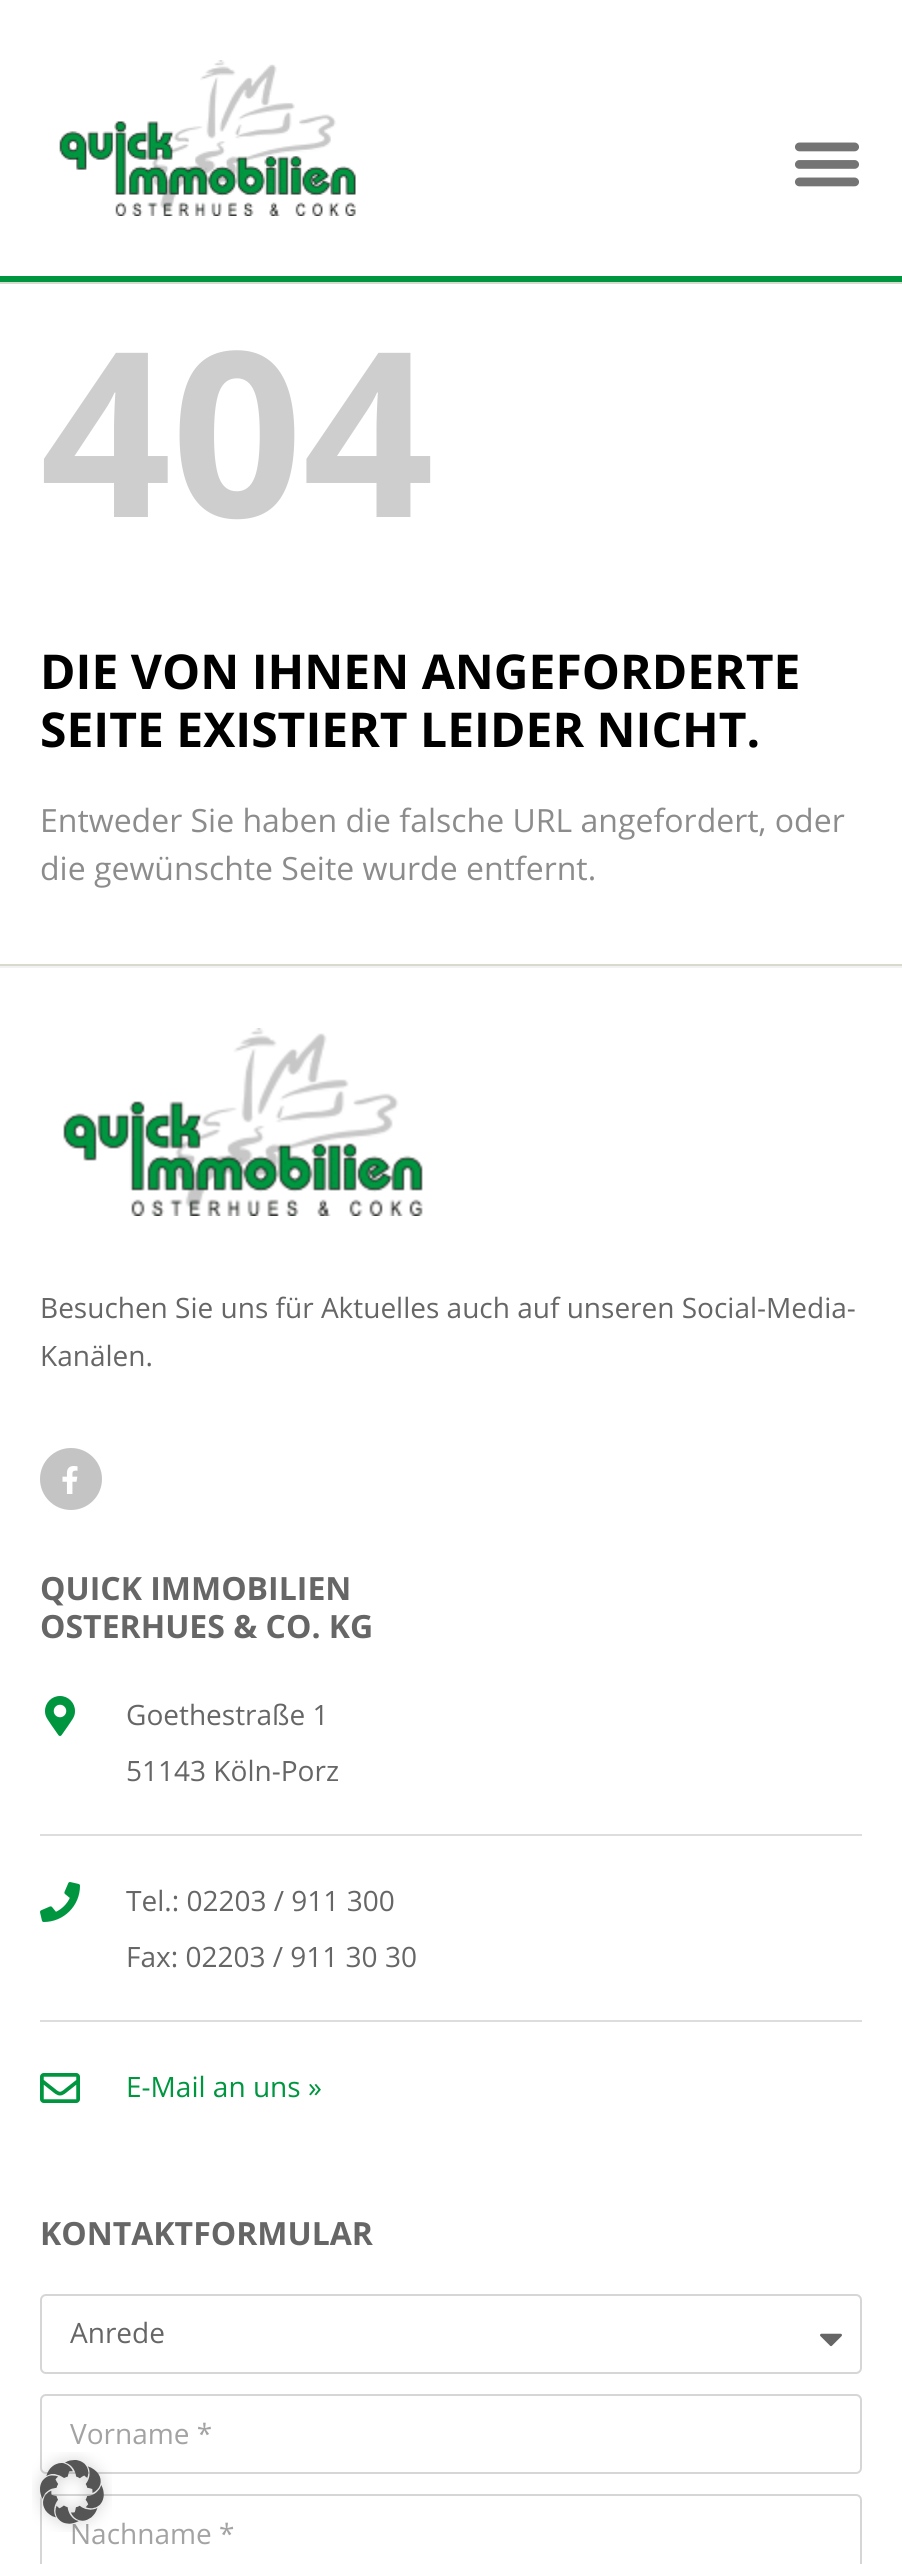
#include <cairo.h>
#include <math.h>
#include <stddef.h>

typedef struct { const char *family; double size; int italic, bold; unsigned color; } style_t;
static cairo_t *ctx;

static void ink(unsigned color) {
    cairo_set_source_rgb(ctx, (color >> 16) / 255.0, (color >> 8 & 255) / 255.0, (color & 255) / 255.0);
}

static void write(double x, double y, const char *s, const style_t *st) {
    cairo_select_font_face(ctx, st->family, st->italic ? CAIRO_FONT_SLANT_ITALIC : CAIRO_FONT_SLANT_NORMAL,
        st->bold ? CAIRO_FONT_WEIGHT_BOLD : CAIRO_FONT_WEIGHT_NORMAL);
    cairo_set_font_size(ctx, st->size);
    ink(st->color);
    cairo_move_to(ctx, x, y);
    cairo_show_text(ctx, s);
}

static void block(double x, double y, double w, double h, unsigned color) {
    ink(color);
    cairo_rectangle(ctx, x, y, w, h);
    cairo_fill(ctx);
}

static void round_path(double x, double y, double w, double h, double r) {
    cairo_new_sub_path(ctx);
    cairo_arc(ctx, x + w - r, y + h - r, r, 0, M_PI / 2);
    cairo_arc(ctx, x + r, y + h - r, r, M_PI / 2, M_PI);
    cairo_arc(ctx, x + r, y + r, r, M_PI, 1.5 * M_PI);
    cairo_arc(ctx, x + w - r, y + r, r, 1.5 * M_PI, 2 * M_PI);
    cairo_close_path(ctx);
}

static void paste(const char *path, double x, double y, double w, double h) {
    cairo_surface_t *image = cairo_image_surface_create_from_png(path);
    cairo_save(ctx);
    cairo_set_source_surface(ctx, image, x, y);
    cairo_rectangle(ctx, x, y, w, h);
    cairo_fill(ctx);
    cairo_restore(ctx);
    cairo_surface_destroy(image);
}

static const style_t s1 = {"Open Sans", 230, 0, 1, 0xcecece};
static const style_t s2 = {"Open Sans", 48, 0, 1, 0x000000};
static const style_t s3 = {"Open Sans", 32, 0, 0, 0x8c8c8c};
static const style_t s4 = {"Open Sans", 28, 0, 0, 0x666666};
static const style_t s5 = {"Open Sans", 32, 0, 1, 0x666666};
static const style_t s6 = {"Open Sans", 28, 0, 0, 0x009640};
static const style_t s7 = {"Open Sans", 28, 0, 0, 0xa3a3a3};

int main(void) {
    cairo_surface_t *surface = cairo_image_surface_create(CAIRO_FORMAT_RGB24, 902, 2564);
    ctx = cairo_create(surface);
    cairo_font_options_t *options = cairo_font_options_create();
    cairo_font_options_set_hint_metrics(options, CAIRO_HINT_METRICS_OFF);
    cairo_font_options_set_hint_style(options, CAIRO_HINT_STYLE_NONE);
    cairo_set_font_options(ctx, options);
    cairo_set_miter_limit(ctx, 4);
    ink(0xffffff);
    cairo_paint(ctx);
    block(0, 276, 902, 6, 0x009640);
    paste("pic1.png", 59, 60, 297, 156);
    paste("pic2.png", 794, 142, 65, 45);
    block(0, 282, 902, 2, 0xd8dacd);
    block(0, 964, 902, 2, 0xd8dacd);
    write(40, 517, "404", &s1);
    write(40, 689, "DIE VON IHNEN ANGEFORDERTE", &s2);
    write(40, 747, "SEITE EXISTIERT LEIDER NICHT.", &s2);
    write(40, 832, "Entweder Sie haben die falsche URL angefordert, oder", &s3);
    write(40, 880, "die gewünschte Seite wurde entfernt.", &s3);
    block(0, 966, 902, 2, 0xf2f2f2);
    paste("pic3.png", 63, 1028, 360, 188);
    write(40, 1318, "Besuchen Sie uns für Aktuelles auch auf unseren Social-Media-", &s4);
    write(40, 1366, "Kanälen.", &s4);
    ink(0xc4c4c4);
    cairo_new_path(ctx);
    cairo_arc(ctx, 71, 1479, 31, 0, 2 * M_PI);
    cairo_fill(ctx);
    paste("pic4.png", 62, 1466, 16, 28);
    write(40, 1600, "QUICK IMMOBILIEN", &s5);
    write(40, 1638, "OSTERHUES & CO. KG", &s5);
    paste("pic5.png", 45, 1696, 30, 40);
    write(126, 1725, "Goethestraße 1", &s4);
    write(126, 1781, "51143 Köln-Porz", &s4);
    block(40, 1834, 822, 2, 0xdddddd);
    paste("pic6.png", 40, 1882, 40, 40);
    write(126, 1911, "Tel.: 02203 / 911 300", &s4);
    write(126, 1967, "Fax: 02203 / 911 30 30", &s4);
    block(40, 2020, 822, 2, 0xdddddd);
    paste("pic7.png", 40, 2073, 40, 30);
    write(126, 2097, "E-Mail an uns »", &s6);
    write(40, 2245, "KONTAKTFORMULAR", &s5);
    round_path(41, 2295, 820, 78, 5);
    ink(0xd6d6d6);
    cairo_stroke(ctx);
    write(70, 2343, "Anrede", &s4);
    paste("pic8.png", 820, 2333, 22, 14);
    round_path(41, 2395, 820, 78, 5);
    ink(0xd6d6d6);
    cairo_stroke(ctx);
    write(70, 2444, "Vorname *", &s7);
    round_path(41, 2495, 820, 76, 5);
    ink(0xd6d6d6);
    cairo_stroke(ctx);
    write(70, 2544, "Nachname *", &s7);
    paste("pic9.png", 32, 2452, 80, 80);
    cairo_surface_write_to_png(surface, "screenshot.png");
    cairo_font_options_destroy(options);
    cairo_destroy(ctx);
    cairo_surface_destroy(surface);
    return 0;
}
